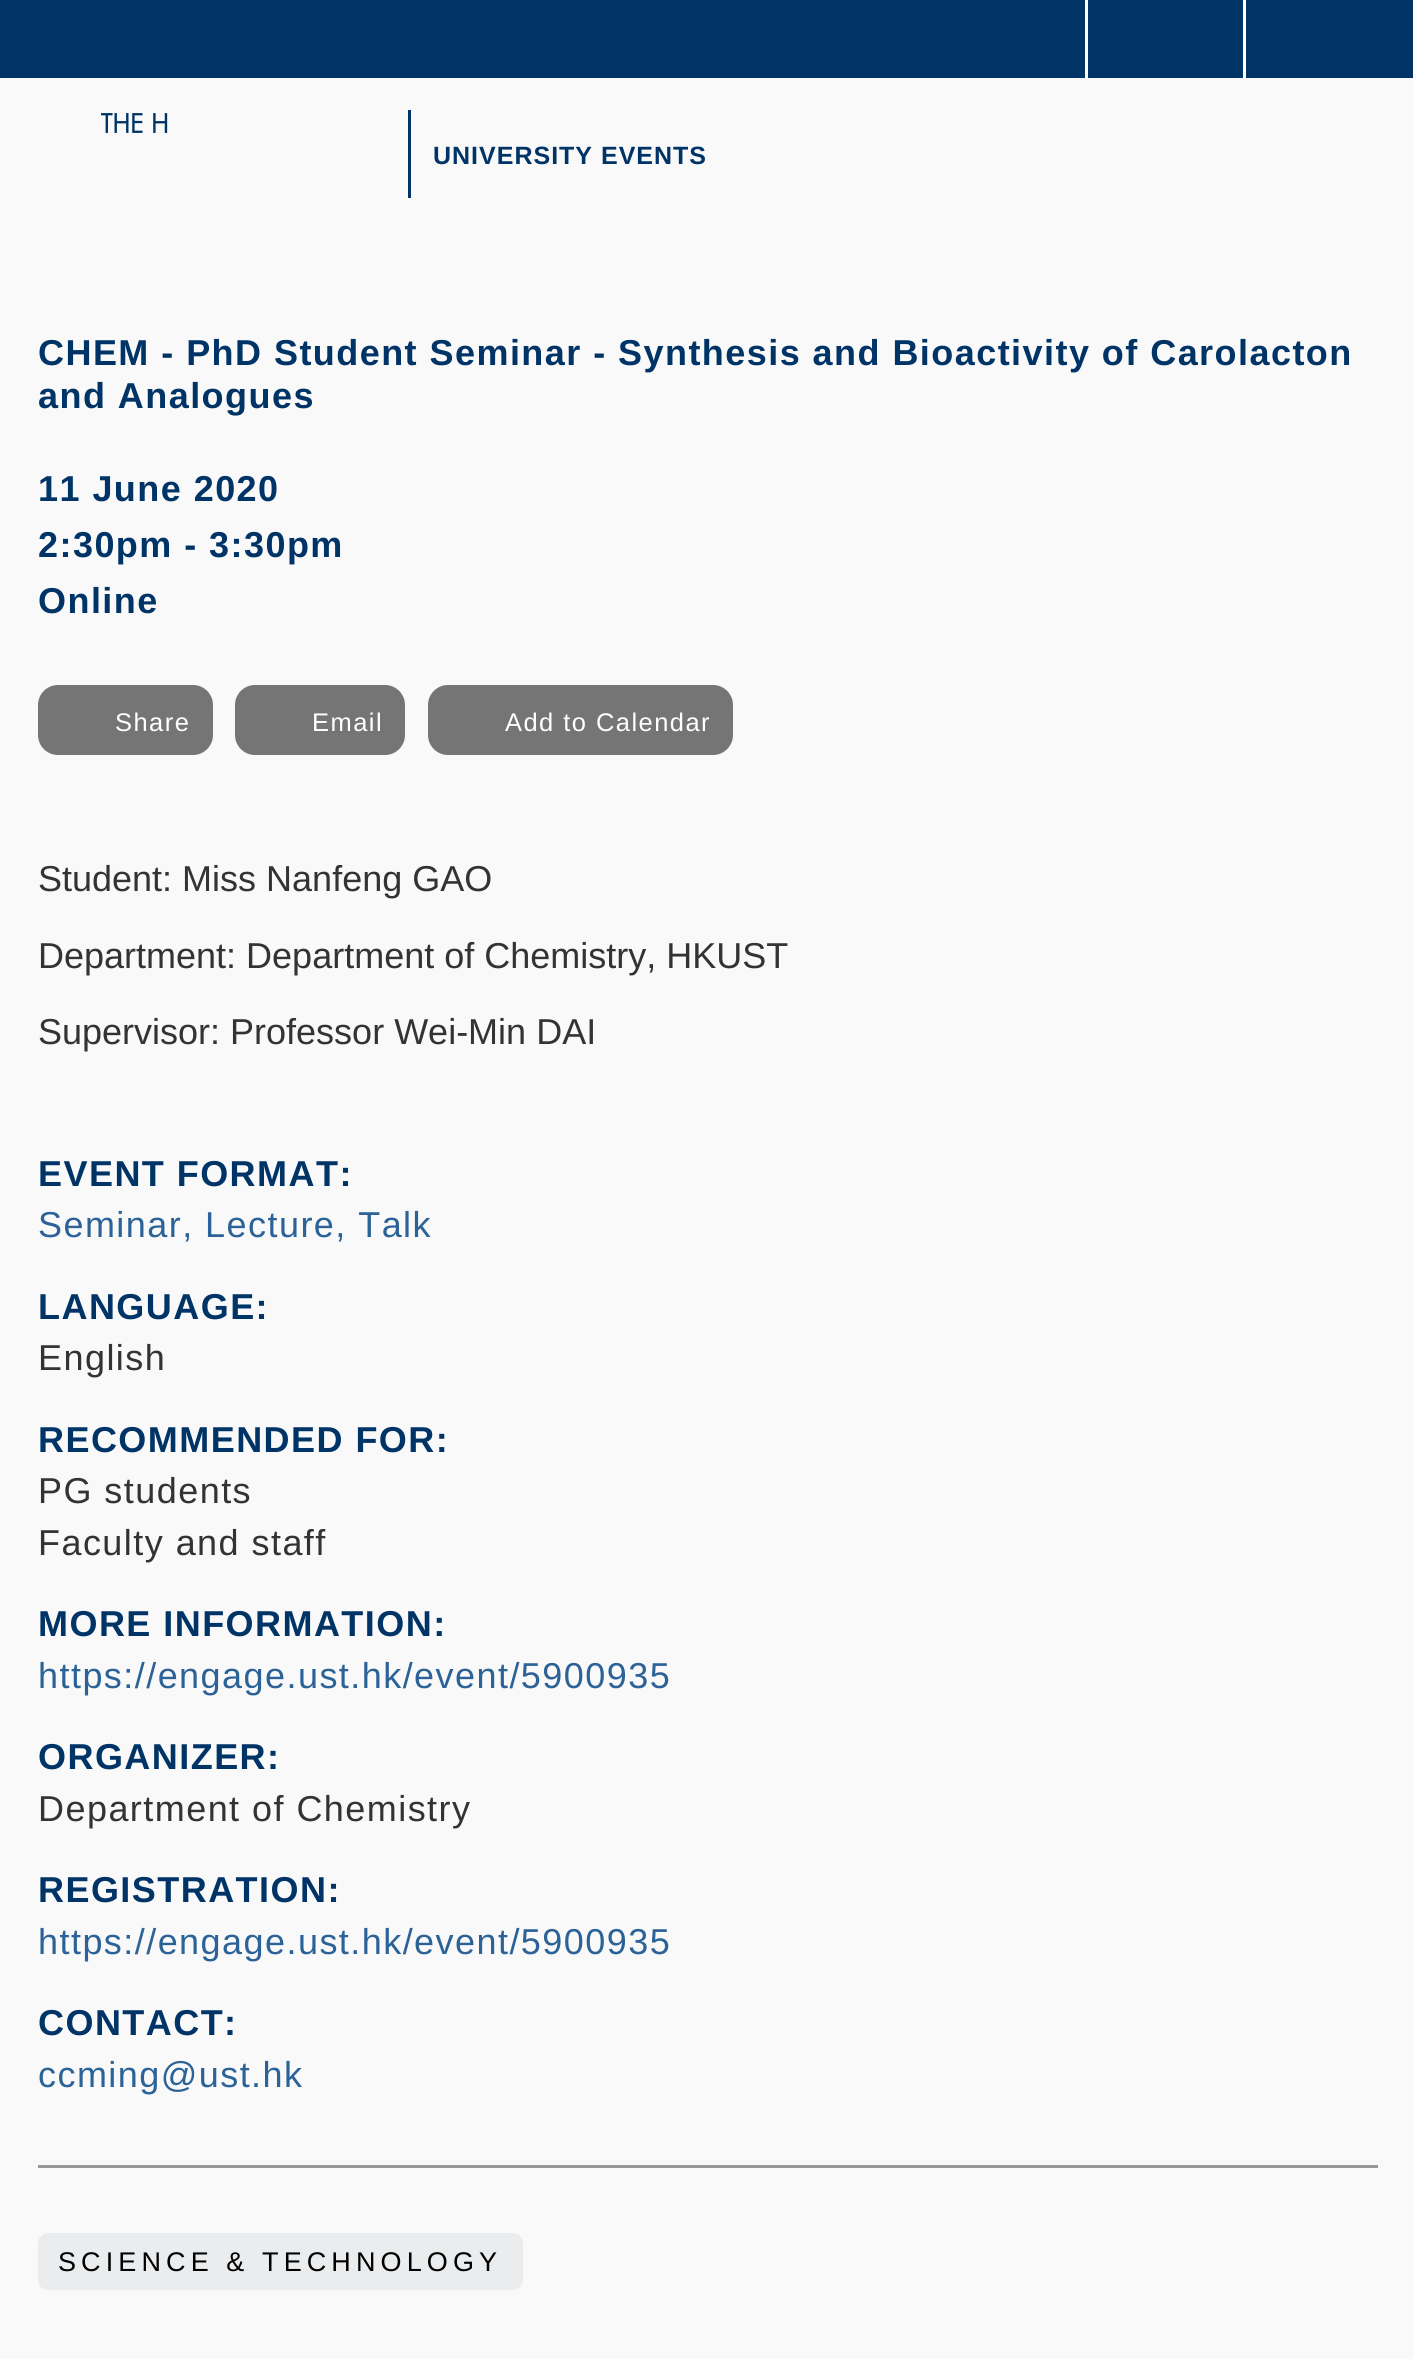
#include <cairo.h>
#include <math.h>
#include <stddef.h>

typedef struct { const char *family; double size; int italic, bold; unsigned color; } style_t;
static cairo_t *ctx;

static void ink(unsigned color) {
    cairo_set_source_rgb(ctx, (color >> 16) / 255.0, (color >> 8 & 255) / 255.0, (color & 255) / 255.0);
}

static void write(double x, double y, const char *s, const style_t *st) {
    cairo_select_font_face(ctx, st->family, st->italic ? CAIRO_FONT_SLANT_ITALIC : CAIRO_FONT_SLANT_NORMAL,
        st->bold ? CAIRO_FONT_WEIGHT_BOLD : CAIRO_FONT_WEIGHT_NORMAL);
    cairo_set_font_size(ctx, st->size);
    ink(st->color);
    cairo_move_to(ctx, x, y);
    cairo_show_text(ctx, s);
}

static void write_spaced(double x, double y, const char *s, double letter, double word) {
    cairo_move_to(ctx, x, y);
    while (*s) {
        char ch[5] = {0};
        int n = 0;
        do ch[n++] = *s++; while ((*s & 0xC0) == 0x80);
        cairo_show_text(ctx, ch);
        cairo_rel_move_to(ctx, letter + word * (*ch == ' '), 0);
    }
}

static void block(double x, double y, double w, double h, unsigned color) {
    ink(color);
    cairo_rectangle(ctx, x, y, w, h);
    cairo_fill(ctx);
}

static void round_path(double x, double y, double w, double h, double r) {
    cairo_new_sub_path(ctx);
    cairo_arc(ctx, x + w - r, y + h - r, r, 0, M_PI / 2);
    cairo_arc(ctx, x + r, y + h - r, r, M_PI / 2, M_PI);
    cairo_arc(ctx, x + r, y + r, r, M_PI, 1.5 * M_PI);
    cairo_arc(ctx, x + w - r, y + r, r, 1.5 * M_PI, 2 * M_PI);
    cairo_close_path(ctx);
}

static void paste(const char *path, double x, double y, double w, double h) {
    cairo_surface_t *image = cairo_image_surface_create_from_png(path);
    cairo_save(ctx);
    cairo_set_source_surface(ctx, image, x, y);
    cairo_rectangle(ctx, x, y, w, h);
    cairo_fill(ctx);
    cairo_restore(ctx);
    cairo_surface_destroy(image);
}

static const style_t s1 = {"Liberation Sans", 36, 0, 0, 0x333333};

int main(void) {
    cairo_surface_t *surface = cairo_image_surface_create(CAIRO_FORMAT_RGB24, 1413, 2359);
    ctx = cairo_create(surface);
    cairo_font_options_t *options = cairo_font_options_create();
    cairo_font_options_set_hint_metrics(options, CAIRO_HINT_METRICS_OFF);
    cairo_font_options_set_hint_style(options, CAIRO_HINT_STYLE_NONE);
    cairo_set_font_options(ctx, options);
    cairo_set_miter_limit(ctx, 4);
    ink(0xf9f9f9);
    cairo_paint(ctx);
    block(0, 0, 1413, 78, 0x003366);
    block(1243, 0, 3, 78, 0xffffff);
    block(1085, 0, 3, 78, 0xffffff);
    paste("pic1.png", 101, 113, 67, 20);
    block(408, 110, 3, 88, 0x003366);
    cairo_select_font_face(ctx, "Liberation Sans", CAIRO_FONT_SLANT_NORMAL, CAIRO_FONT_WEIGHT_BOLD);
    cairo_set_font_size(ctx, 25);
    write_spaced(433, 164, "UNIVERSITY EVENTS", 1, 0);
    cairo_set_font_size(ctx, 36);
    write_spaced(38, 365, "CHEM - PhD Student Seminar - Synthesis and Bioactivity of Carolacton", 1.45, 0);
    write_spaced(38, 408, "and Analogues", 1.45, 0);
    write_spaced(38, 501, "11 June 2020", 1.45, 0);
    write_spaced(38, 557, "2:30pm - 3:30pm", 1.45, 0);
    write_spaced(38, 613, "Online", 1.45, 0);
    ink(0x757575);
    round_path(38, 685, 175, 70, 20);
    cairo_fill(ctx);
    cairo_select_font_face(ctx, "Liberation Sans", CAIRO_FONT_SLANT_NORMAL, CAIRO_FONT_WEIGHT_NORMAL);
    cairo_set_font_size(ctx, 25.5);
    ink(0xffffff);
    write_spaced(115, 731, "Share", 1.45, 0);
    ink(0x757575);
    round_path(235, 685, 170, 70, 20);
    cairo_fill(ctx);
    ink(0xffffff);
    write_spaced(312, 731, "Email", 1.45, 0);
    ink(0x757575);
    round_path(428, 685, 305, 70, 20);
    cairo_fill(ctx);
    ink(0xffffff);
    write_spaced(505, 731, "Add to Calendar", 1.45, 0);
    write(38, 891, "Student: Miss Nanfeng GAO", &s1);
    write(38, 968, "Department: Department of Chemistry, HKUST", &s1);
    write(38, 1044, "Supervisor: Professor Wei-Min DAI", &s1);
    cairo_select_font_face(ctx, "Liberation Sans", CAIRO_FONT_SLANT_NORMAL, CAIRO_FONT_WEIGHT_BOLD);
    ink(0x003366);
    write_spaced(38, 1186, "EVENT FORMAT:", 1.45, 0);
    cairo_select_font_face(ctx, "Liberation Sans", CAIRO_FONT_SLANT_NORMAL, CAIRO_FONT_WEIGHT_NORMAL);
    ink(0x2b6297);
    write_spaced(38, 1237, "Seminar, Lecture, Talk", 1.45, 0);
    cairo_select_font_face(ctx, "Liberation Sans", CAIRO_FONT_SLANT_NORMAL, CAIRO_FONT_WEIGHT_BOLD);
    ink(0x003366);
    write_spaced(38, 1319, "LANGUAGE:", 1.45, 0);
    cairo_select_font_face(ctx, "Liberation Sans", CAIRO_FONT_SLANT_NORMAL, CAIRO_FONT_WEIGHT_NORMAL);
    ink(0x333333);
    write_spaced(38, 1370, "English", 1.45, 0);
    cairo_select_font_face(ctx, "Liberation Sans", CAIRO_FONT_SLANT_NORMAL, CAIRO_FONT_WEIGHT_BOLD);
    ink(0x003366);
    write_spaced(38, 1452, "RECOMMENDED FOR:", 1.45, 0);
    cairo_select_font_face(ctx, "Liberation Sans", CAIRO_FONT_SLANT_NORMAL, CAIRO_FONT_WEIGHT_NORMAL);
    ink(0x333333);
    write_spaced(38, 1503, "PG students", 1.45, 0);
    write_spaced(38, 1555, "Faculty and staff", 1.45, 0);
    cairo_select_font_face(ctx, "Liberation Sans", CAIRO_FONT_SLANT_NORMAL, CAIRO_FONT_WEIGHT_BOLD);
    ink(0x003366);
    write_spaced(38, 1636, "MORE INFORMATION:", 1.45, 0);
    cairo_select_font_face(ctx, "Liberation Sans", CAIRO_FONT_SLANT_NORMAL, CAIRO_FONT_WEIGHT_NORMAL);
    ink(0x2b6297);
    write_spaced(38, 1688, "https://engage.ust.hk/event/5900935", 1.45, 0);
    cairo_select_font_face(ctx, "Liberation Sans", CAIRO_FONT_SLANT_NORMAL, CAIRO_FONT_WEIGHT_BOLD);
    ink(0x003366);
    write_spaced(38, 1769, "ORGANIZER:", 1.45, 0);
    cairo_select_font_face(ctx, "Liberation Sans", CAIRO_FONT_SLANT_NORMAL, CAIRO_FONT_WEIGHT_NORMAL);
    ink(0x333333);
    write_spaced(38, 1821, "Department of Chemistry", 1.45, 0);
    cairo_select_font_face(ctx, "Liberation Sans", CAIRO_FONT_SLANT_NORMAL, CAIRO_FONT_WEIGHT_BOLD);
    ink(0x003366);
    write_spaced(38, 1902, "REGISTRATION:", 1.45, 0);
    cairo_select_font_face(ctx, "Liberation Sans", CAIRO_FONT_SLANT_NORMAL, CAIRO_FONT_WEIGHT_NORMAL);
    ink(0x2b6297);
    write_spaced(38, 1954, "https://engage.ust.hk/event/5900935", 1.45, 0);
    cairo_select_font_face(ctx, "Liberation Sans", CAIRO_FONT_SLANT_NORMAL, CAIRO_FONT_WEIGHT_BOLD);
    ink(0x003366);
    write_spaced(38, 2035, "CONTACT:", 1.45, 0);
    cairo_select_font_face(ctx, "Liberation Sans", CAIRO_FONT_SLANT_NORMAL, CAIRO_FONT_WEIGHT_NORMAL);
    ink(0x2b6297);
    write_spaced(38, 2087, "ccming@ust.hk", 1.45, 0);
    block(38, 2165, 1340, 3, 0x979797);
    ink(0xeaecee);
    round_path(38, 2233, 485, 57, 10);
    cairo_fill(ctx);
    cairo_set_font_size(ctx, 27);
    ink(0x000000);
    write_spaced(58, 2271, "SCIENCE & TECHNOLOGY", 5.1, 0);
    cairo_surface_write_to_png(surface, "screenshot.png");
    cairo_font_options_destroy(options);
    cairo_destroy(ctx);
    cairo_surface_destroy(surface);
    return 0;
}
